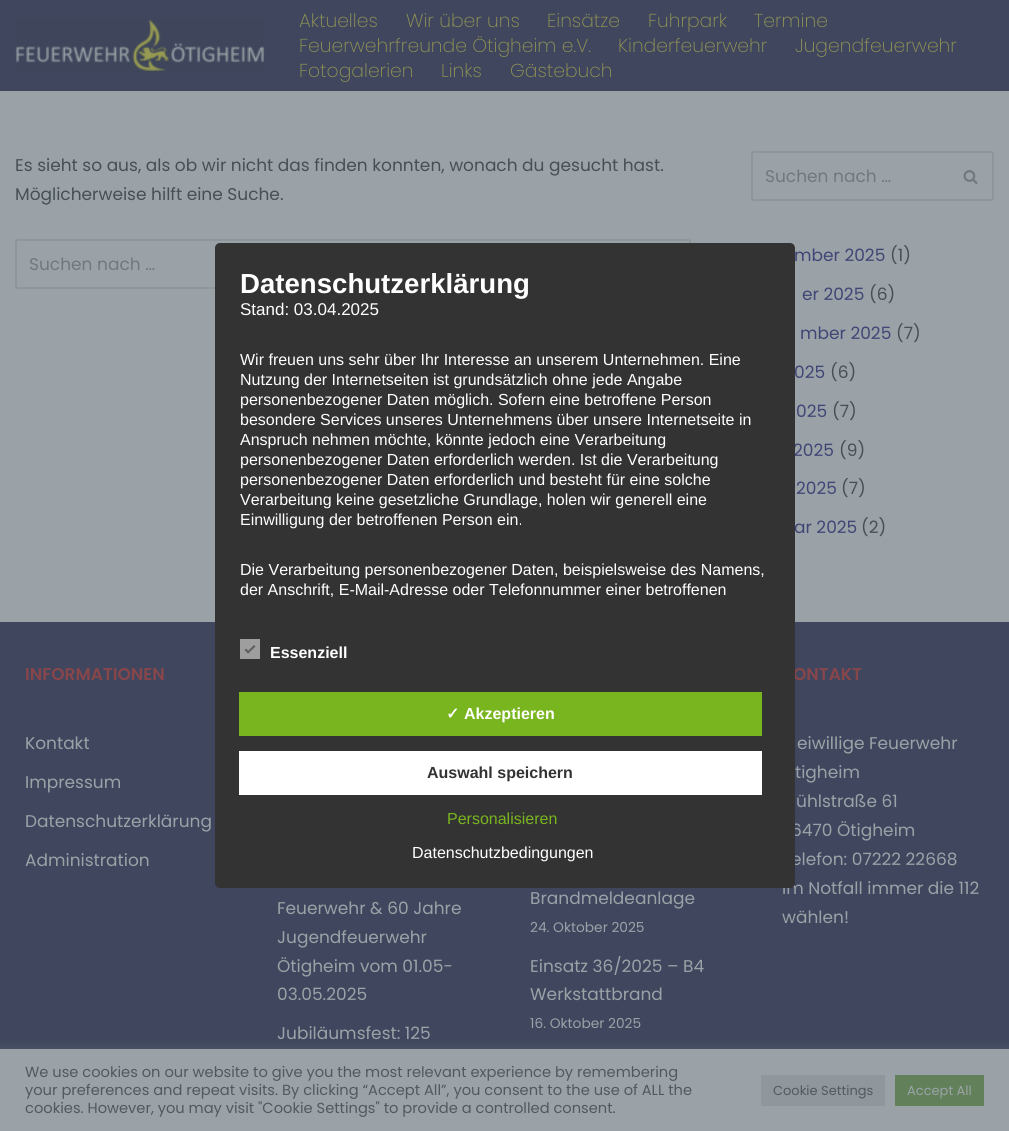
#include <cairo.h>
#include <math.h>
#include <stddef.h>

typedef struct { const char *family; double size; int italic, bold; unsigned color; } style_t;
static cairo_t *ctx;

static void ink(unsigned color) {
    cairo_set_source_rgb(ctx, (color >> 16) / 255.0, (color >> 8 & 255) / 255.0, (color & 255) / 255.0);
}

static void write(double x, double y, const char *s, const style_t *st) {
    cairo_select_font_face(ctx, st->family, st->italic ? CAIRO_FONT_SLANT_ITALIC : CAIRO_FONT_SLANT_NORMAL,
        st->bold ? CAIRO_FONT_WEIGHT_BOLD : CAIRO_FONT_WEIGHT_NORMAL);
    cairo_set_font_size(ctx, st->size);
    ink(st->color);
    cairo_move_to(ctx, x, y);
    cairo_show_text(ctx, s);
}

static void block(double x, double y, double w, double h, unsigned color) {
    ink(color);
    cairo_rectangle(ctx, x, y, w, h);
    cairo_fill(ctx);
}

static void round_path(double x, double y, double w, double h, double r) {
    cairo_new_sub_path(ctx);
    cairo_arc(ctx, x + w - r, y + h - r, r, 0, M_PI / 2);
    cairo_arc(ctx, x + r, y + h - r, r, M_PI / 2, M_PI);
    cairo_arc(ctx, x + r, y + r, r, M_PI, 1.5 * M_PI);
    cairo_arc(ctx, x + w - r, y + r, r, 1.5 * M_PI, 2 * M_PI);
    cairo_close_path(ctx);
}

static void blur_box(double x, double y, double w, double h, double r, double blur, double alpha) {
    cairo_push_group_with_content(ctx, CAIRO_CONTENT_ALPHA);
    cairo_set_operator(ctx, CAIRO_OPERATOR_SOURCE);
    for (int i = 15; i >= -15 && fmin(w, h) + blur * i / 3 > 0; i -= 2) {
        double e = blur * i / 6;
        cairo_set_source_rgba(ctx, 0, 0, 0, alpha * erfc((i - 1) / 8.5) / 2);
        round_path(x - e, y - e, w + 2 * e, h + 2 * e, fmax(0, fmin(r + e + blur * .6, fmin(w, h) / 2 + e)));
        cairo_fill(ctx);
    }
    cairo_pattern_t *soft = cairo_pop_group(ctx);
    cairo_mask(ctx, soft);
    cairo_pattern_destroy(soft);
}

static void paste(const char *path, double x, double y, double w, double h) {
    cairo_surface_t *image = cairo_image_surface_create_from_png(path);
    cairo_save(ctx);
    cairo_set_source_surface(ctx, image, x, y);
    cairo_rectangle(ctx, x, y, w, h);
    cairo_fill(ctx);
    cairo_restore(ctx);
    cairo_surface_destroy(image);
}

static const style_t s1 = {"Poppins ExtraLight", 18.75, 0, 0, 0x939554};
static const style_t s2 = {"Poppins", 17, 0, 0, 0x464f55};
static const style_t s3 = {"Poppins", 17, 0, 0, 0x70787e};
static const style_t s4 = {"Poppins", 17, 0, 0, 0x3f4676};
static const style_t s5 = {"Poppins SemiBold", 17, 0, 0, 0x88464b};
static const style_t s6 = {"Poppins", 17, 0, 0, 0x9ba2a7};
static const style_t s7 = {"Poppins", 13.75, 0, 0, 0x9ba2a7};
static const style_t s8 = {"Liberation Sans", 27.6, 0, 1, 0xffffff};
static const style_t s9 = {"Liberation Sans", 17, 0, 0, 0xffffff};
static const style_t s10 = {"Liberation Sans", 16, 0, 0, 0xffffff};
static const style_t s11 = {"Liberation Sans", 16, 0, 1, 0xffffff};
static const style_t s12 = {"DejaVu Sans", 16, 0, 1, 0xffffff};
static const style_t s13 = {"Liberation Sans", 16, 0, 1, 0x333333};
static const style_t s14 = {"Liberation Sans", 16, 0, 0, 0x79b51f};
static const style_t s15 = {"Poppins", 14.65, 0, 0, 0x51595d};
static const style_t s16 = {"Poppins", 13, 0, 0, 0x51595d};
static const style_t s17 = {"Poppins", 13, 0, 0, 0x9ba2a7};

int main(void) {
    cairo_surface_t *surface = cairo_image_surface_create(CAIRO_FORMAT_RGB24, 1009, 1131);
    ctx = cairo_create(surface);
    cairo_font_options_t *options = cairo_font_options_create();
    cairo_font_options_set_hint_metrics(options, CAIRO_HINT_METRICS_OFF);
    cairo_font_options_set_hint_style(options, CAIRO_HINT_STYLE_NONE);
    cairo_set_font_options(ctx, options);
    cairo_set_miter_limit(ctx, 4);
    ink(0x9ba2a7);
    cairo_paint(ctx);
    block(0, 0, 1009, 91, 0x3f465d);
    paste("pic1.png", 15, 19, 250, 53);
    write(299, 27, "Aktuelles", &s1);
    write(406, 27, "Wir über uns", &s1);
    write(547, 27, "Einsätze", &s1);
    write(648, 27, "Fuhrpark", &s1);
    write(754, 27, "Termine", &s1);
    write(299, 52, "Feuerwehrfreunde Ötigheim e.V.", &s1);
    write(618, 52, "Kinderfeuerwehr", &s1);
    write(795, 52, "Jugendfeuerwehr", &s1);
    write(299, 77, "Fotogalerien", &s1);
    write(441, 77, "Links", &s1);
    write(510, 77, "Gästebuch", &s1);
    write(15, 171, "Es sieht so aus, als ob wir nicht das finden konnten, wonach du gesucht hast.", &s2);
    write(15, 200, "Möglicherweise hilft eine Suche.", &s2);
    ink(0x8e969a);
    cairo_set_fill_rule(ctx, CAIRO_FILL_RULE_EVEN_ODD);
    cairo_new_path(ctx);
    cairo_move_to(ctx, 18, 239);
    cairo_line_to(ctx, 646, 239);
    cairo_line_to(ctx, 646, 289);
    cairo_line_to(ctx, 18, 289);
    cairo_curve_to(ctx, 16, 289, 15, 288, 15, 286);
    cairo_line_to(ctx, 15, 242);
    cairo_curve_to(ctx, 15, 240, 16, 239, 18, 239);
    cairo_close_path(ctx);
    cairo_move_to(ctx, 18, 241);
    cairo_line_to(ctx, 646, 241);
    cairo_line_to(ctx, 646, 287);
    cairo_line_to(ctx, 18, 287);
    cairo_curve_to(ctx, 17, 287, 17, 287, 17, 286);
    cairo_line_to(ctx, 17, 242);
    cairo_curve_to(ctx, 17, 241, 17, 241, 18, 241);
    cairo_close_path(ctx);
    cairo_fill(ctx);
    write(29, 270, "Suchen nach …", &s3);
    ink(0x8e969a);
    cairo_new_path(ctx);
    cairo_move_to(ctx, 646, 239);
    cairo_line_to(ctx, 688, 239);
    cairo_curve_to(ctx, 690, 239, 691, 240, 691, 242);
    cairo_line_to(ctx, 691, 286);
    cairo_curve_to(ctx, 691, 288, 690, 289, 688, 289);
    cairo_line_to(ctx, 646, 289);
    cairo_close_path(ctx);
    cairo_move_to(ctx, 646, 241);
    cairo_line_to(ctx, 688, 241);
    cairo_curve_to(ctx, 689, 241, 689, 241, 689, 242);
    cairo_line_to(ctx, 689, 286);
    cairo_curve_to(ctx, 689, 287, 689, 287, 688, 287);
    cairo_line_to(ctx, 646, 287);
    cairo_close_path(ctx);
    cairo_fill(ctx);
    cairo_new_path(ctx);
    cairo_move_to(ctx, 754, 151);
    cairo_line_to(ctx, 949, 151);
    cairo_line_to(ctx, 949, 201);
    cairo_line_to(ctx, 754, 201);
    cairo_curve_to(ctx, 752, 201, 751, 200, 751, 198);
    cairo_line_to(ctx, 751, 154);
    cairo_curve_to(ctx, 751, 152, 752, 151, 754, 151);
    cairo_close_path(ctx);
    cairo_move_to(ctx, 754, 153);
    cairo_line_to(ctx, 949, 153);
    cairo_line_to(ctx, 949, 199);
    cairo_line_to(ctx, 754, 199);
    cairo_curve_to(ctx, 753, 199, 753, 199, 753, 198);
    cairo_line_to(ctx, 753, 154);
    cairo_curve_to(ctx, 753, 153, 753, 153, 754, 153);
    cairo_close_path(ctx);
    cairo_fill(ctx);
    write(765, 182, "Suchen nach …", &s3);
    ink(0x8e969a);
    cairo_new_path(ctx);
    cairo_move_to(ctx, 949, 151);
    cairo_line_to(ctx, 991, 151);
    cairo_curve_to(ctx, 993, 151, 994, 152, 994, 154);
    cairo_line_to(ctx, 994, 198);
    cairo_curve_to(ctx, 994, 200, 993, 201, 991, 201);
    cairo_line_to(ctx, 949, 201);
    cairo_close_path(ctx);
    cairo_move_to(ctx, 949, 153);
    cairo_line_to(ctx, 991, 153);
    cairo_curve_to(ctx, 992, 153, 992, 153, 992, 154);
    cairo_line_to(ctx, 992, 198);
    cairo_curve_to(ctx, 992, 199, 992, 199, 991, 199);
    cairo_line_to(ctx, 949, 199);
    cairo_close_path(ctx);
    cairo_fill(ctx);
    paste("pic2.png", 963, 170, 15, 14);
    write(794, 261, "mber 2025", &s4);
    write(890, 261, "(1)", &s2);
    write(802, 300, "er 2025", &s4);
    write(869, 300, "(6)", &s2);
    write(800, 339, "mber 2025", &s4);
    write(896, 339, "(7)", &s2);
    write(794, 378, "025", &s4);
    write(830, 378, "(6)", &s2);
    write(796, 417, "025", &s4);
    write(832, 417, "(7)", &s2);
    write(793, 456, "2025", &s4);
    write(839, 456, "(9)", &s2);
    write(796, 494, "2025", &s4);
    write(841, 494, "(7)", &s2);
    write(794, 533, "ar 2025", &s4);
    write(861, 533, "(2)", &s2);
    block(0, 622, 1009, 427, 0x3f465d);
    write(25, 680, "INFORMATIONEN", &s5);
    write(25, 749, "Kontakt", &s6);
    write(25, 788, "Impressum", &s6);
    write(25, 827, "Datenschutzerklärung", &s6);
    write(25, 866, "Administration", &s6);
    write(793, 680, "ONTAKT", &s5);
    write(797, 749, "eiwillige Feuerwehr", &s6);
    write(795, 778, "tigheim", &s6);
    write(796, 807, "ühlstraße 61", &s6);
    write(791, 836, "6470 Ötigheim", &s6);
    write(791, 865, "elefon: 07222 22668", &s6);
    write(782, 894, "Im Notfall immer die 112", &s6);
    write(782, 923, "wählen!", &s6);
    write(277, 914, "Feuerwehr & 60 Jahre", &s6);
    write(277, 943, "Jugendfeuerwehr", &s6);
    write(277, 972, "Ötigheim vom 01.05-", &s6);
    write(277, 1000, "03.05.2025", &s6);
    write(277, 1039, "Jubiläumsfest: 125", &s6);
    write(530, 904, "Brandmeldeanlage", &s6);
    write(530, 932, "24. Oktober 2025", &s7);
    write(530, 972, "Einsatz 36/2025 – B4", &s6);
    write(530, 1000, "Werkstattbrand", &s6);
    write(530, 1028, "16. Oktober 2025", &s7);
    ink(0x333333);
    round_path(215, 243, 580, 645, 5);
    cairo_fill(ctx);
    write(240, 293, "Datenschutzerklärung", &s8);
    write(240, 315, "Stand: 03.04.2025", &s9);
    write(240, 365, "Wir freuen uns sehr über Ihr Interesse an unserem Unternehmen. Eine", &s10);
    write(240, 385, "Nutzung der Internetseiten ist grundsätzlich ohne jede Angabe", &s10);
    write(240, 405, "personenbezogener Daten möglich. Sofern eine betroffene Person", &s10);
    write(240, 425, "besondere Services unseres Unternehmens über unsere Internetseite in", &s10);
    write(240, 445, "Anspruch nehmen möchte, könnte jedoch eine Verarbeitung", &s10);
    write(240, 465, "personenbezogener Daten erforderlich werden. Ist die Verarbeitung", &s10);
    write(240, 485, "personenbezogener Daten erforderlich und besteht für eine solche", &s10);
    write(240, 505, "Verarbeitung keine gesetzliche Grundlage, holen wir generell eine", &s10);
    write(240, 525, "Einwilligung der betroffenen Person ein.", &s10);
    write(240, 575, "Die Verarbeitung personenbezogener Daten, beispielsweise des Namens,", &s10);
    write(240, 595, "der Anschrift, E-Mail-Adresse oder Telefonnummer einer betroffenen", &s10);
    block(240, 639, 20, 20, 0x9e9e9e);
    ink(0x5e5e5e);
    cairo_set_fill_rule(ctx, CAIRO_FILL_RULE_WINDING);
    cairo_new_path(ctx);
    cairo_move_to(ctx, 254, 645);
    cairo_line_to(ctx, 255.5, 646.5);
    cairo_line_to(ctx, 248, 653.5);
    cairo_line_to(ctx, 247, 652);
    cairo_close_path(ctx);
    cairo_fill(ctx);
    cairo_new_path(ctx);
    cairo_move_to(ctx, 246, 648.5);
    cairo_line_to(ctx, 249.5, 652);
    cairo_line_to(ctx, 248, 653.5);
    cairo_line_to(ctx, 244.5, 650);
    cairo_close_path(ctx);
    cairo_fill(ctx);
    write(270, 658, "Essenziell", &s11);
    block(239, 692, 523, 44, 0x79b51f);
    write(446, 719, "✓", &s12);
    write(464, 719, "Akzeptieren", &s11);
    block(239, 751, 523, 44, 0xffffff);
    write(427, 778, "Auswahl speichern", &s13);
    write(447, 824, "Personalisieren", &s14);
    write(412, 858, "Datenschutzbedingungen", &s10);
    ink(0x7d8488);
    blur_box(0, 1048, 1009, 82, 0, 5, 0.3);
    block(0, 1049, 1009, 82, 0x9ba2a7);
    write(25, 1077, "We use cookies on our website to give you the most relevant experience by remembering", &s15);
    write(25, 1095, "your preferences and repeat visits. By clicking “Accept All”, you consent to the use of ALL the", &s15);
    write(25, 1113, "cookies. However, you may visit \"Cookie Settings\" to provide a controlled consent.", &s15);
    block(761, 1075, 124, 31, 0x8f979c);
    write(773, 1095, "Cookie Settings", &s16);
    block(895, 1075, 89, 31, 0x62815a);
    write(907, 1095, "Accept All", &s17);
    cairo_surface_write_to_png(surface, "screenshot.png");
    cairo_font_options_destroy(options);
    cairo_destroy(ctx);
    cairo_surface_destroy(surface);
    return 0;
}
